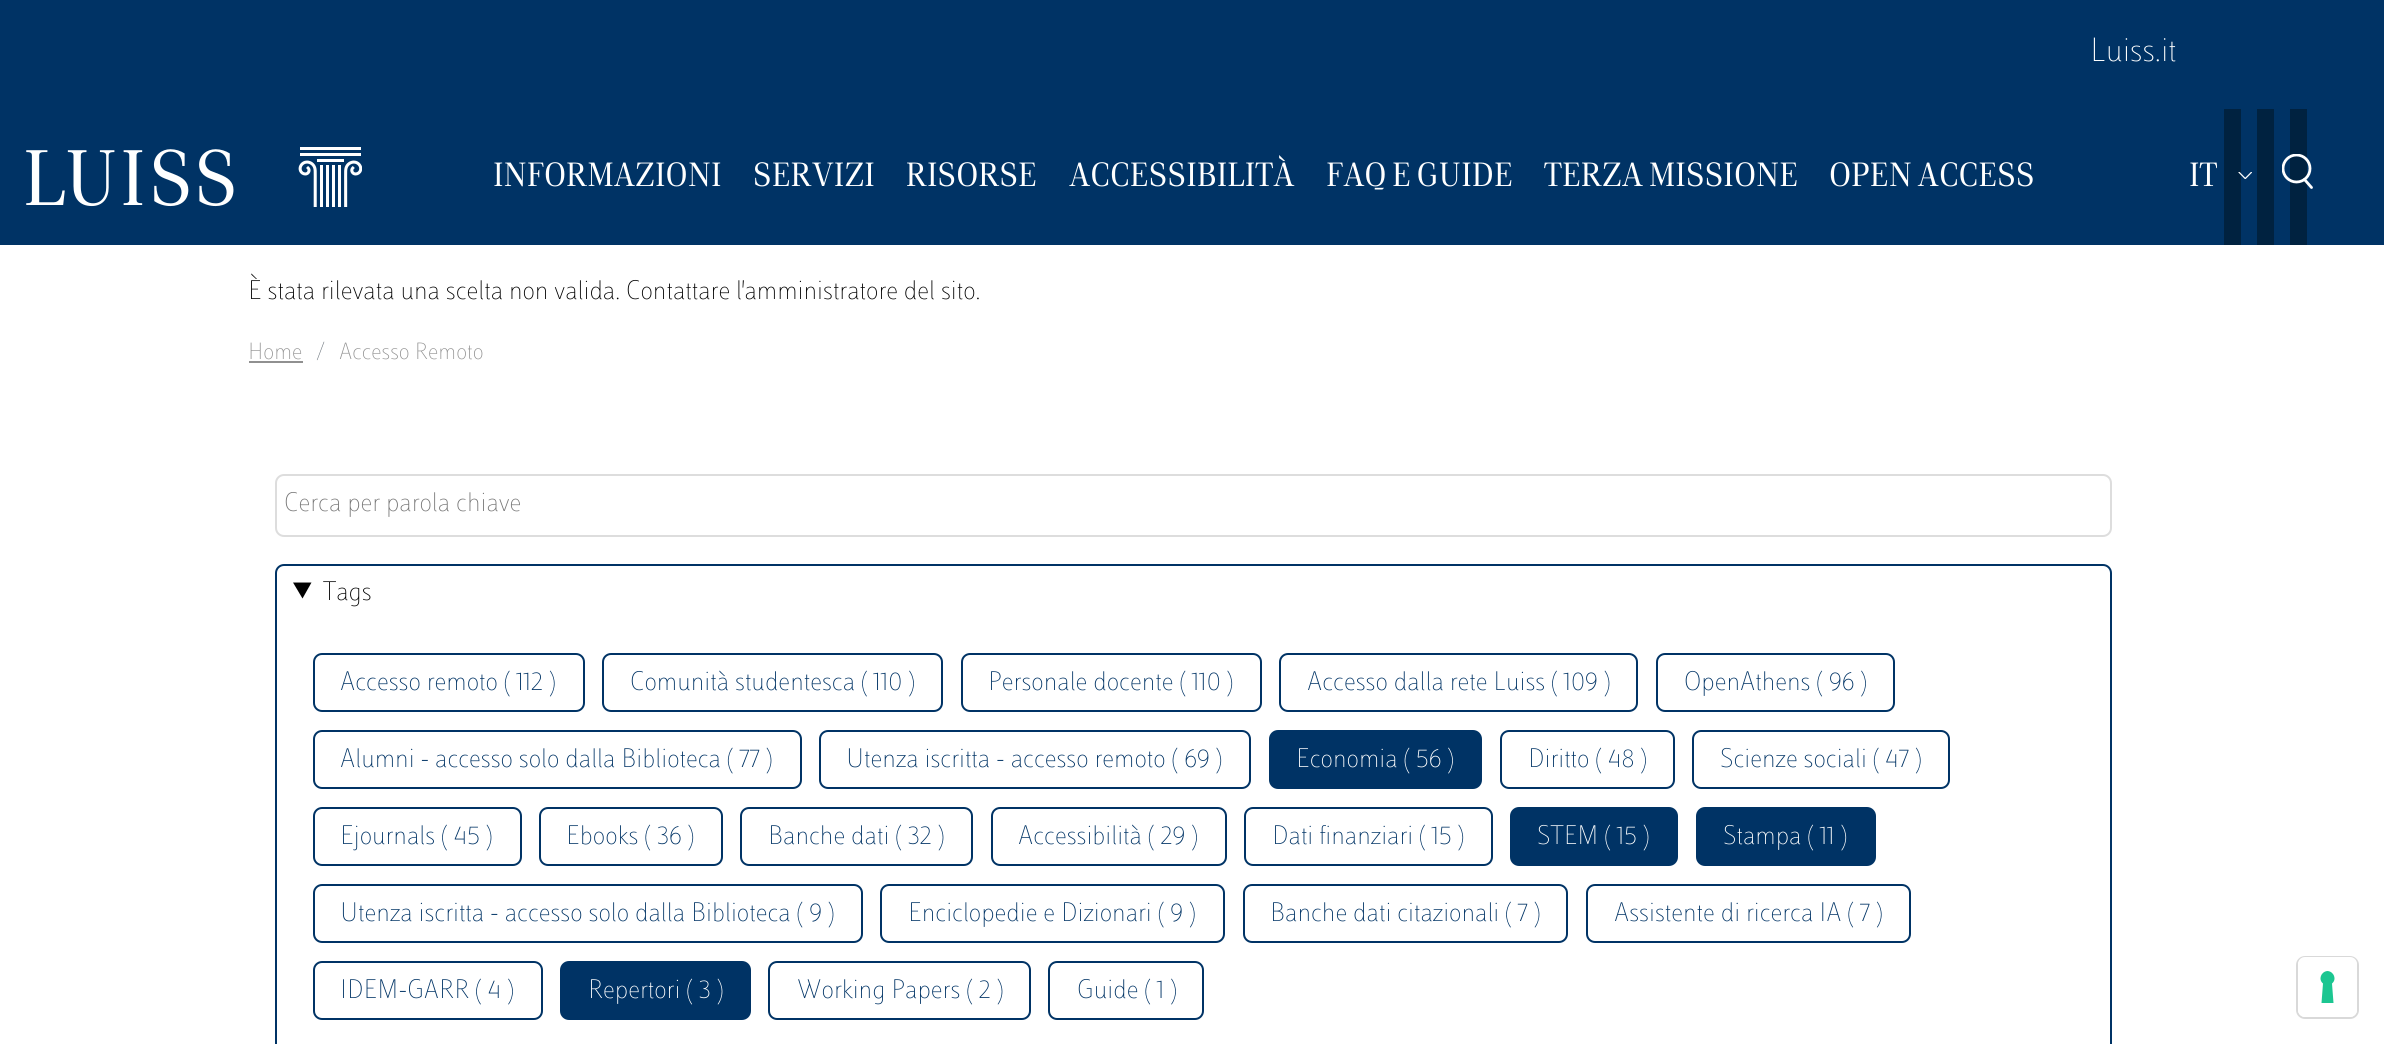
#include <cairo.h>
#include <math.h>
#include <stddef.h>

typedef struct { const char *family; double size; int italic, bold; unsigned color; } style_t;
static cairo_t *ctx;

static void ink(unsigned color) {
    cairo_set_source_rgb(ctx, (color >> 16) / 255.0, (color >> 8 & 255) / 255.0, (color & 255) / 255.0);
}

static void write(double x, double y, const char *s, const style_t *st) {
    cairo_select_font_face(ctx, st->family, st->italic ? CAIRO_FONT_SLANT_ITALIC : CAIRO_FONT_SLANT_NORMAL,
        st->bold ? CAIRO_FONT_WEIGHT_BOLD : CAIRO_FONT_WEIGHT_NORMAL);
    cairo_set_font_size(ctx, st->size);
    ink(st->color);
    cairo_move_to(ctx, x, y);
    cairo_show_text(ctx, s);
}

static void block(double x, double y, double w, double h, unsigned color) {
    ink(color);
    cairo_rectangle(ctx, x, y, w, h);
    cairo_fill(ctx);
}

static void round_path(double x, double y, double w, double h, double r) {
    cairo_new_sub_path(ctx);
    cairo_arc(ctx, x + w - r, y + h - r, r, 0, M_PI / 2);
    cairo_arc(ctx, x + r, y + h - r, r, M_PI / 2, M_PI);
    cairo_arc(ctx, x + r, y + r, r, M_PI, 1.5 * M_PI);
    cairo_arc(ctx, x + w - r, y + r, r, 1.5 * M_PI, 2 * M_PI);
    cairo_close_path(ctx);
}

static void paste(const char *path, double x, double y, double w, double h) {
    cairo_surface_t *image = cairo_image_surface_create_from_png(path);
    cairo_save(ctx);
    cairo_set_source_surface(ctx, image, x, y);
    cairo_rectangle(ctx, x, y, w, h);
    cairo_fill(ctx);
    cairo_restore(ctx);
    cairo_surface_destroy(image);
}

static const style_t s1 = {"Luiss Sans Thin", 35, 0, 0, 0xffffff};
static const style_t s2 = {"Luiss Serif", 35, 0, 0, 0xffffff};
static const style_t s3 = {"Luiss Sans Thin", 28, 0, 0, 0x010101};
static const style_t s4 = {"Luiss Sans Thin", 24.5, 0, 0, 0x909090};
static const style_t s5 = {"Luiss Sans Thin", 24.5, 0, 0, 0x6c757d};
static const style_t s6 = {"Luiss Sans Thin", 28, 0, 0, 0x757575};
static const style_t s7 = {"Luiss Sans Thin", 28, 0, 0, 0x003365};
static const style_t s8 = {"Luiss Sans Thin", 28, 0, 0, 0xffffff};

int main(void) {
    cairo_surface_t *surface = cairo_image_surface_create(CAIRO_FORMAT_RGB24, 2384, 1044);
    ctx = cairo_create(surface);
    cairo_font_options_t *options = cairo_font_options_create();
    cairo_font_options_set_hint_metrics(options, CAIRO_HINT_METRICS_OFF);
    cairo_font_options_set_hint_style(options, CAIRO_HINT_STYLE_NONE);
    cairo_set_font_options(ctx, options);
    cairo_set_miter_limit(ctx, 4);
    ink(0xffffff);
    cairo_paint(ctx);
    block(0, 0, 2384, 245, 0x003365);
    write(2090, 61, "Luiss.it", &s1);
    paste("pic1.png", 26, 147, 336, 60);
    write(493, 186, "INFORMAZIONI", &s2);
    write(753, 186, "SERVIZI", &s2);
    write(906, 186, "RISORSE", &s2);
    write(1069, 186, "ACCESSIBILITÀ", &s2);
    write(1326, 186, "FAQ E GUIDE", &s2);
    write(1544, 186, "TERZA MISSIONE", &s2);
    write(1829, 186, "OPEN ACCESS", &s2);
    cairo_save(ctx);
    cairo_rectangle(ctx, 2189, 151, 28, 52);
    cairo_clip(ctx);
    write(2189, 186, "IT", &s2);
    cairo_restore(ctx);
    block(2224, 109, 17, 136, 0x002240);
    paste("pic2.png", 2238, 172, 14, 7);
    block(2290, 109, 17, 136, 0x002240);
    cairo_save(ctx);
    cairo_rectangle(ctx, 2282, 154, 32, 35);
    cairo_clip(ctx);
    cairo_arc(ctx, 2296.5, 168.5, 13.5, 0, 2 * M_PI);
    ink(0xffffff);
    cairo_set_line_width(ctx, 2.8);
    cairo_stroke(ctx);
    cairo_restore(ctx);
    cairo_new_path(ctx);
    cairo_move_to(ctx, 2311.5, 187.5);
    cairo_line_to(ctx, 2304.5, 179.5);
    ink(0xffffff);
    cairo_set_line_width(ctx, 2.8);
    cairo_set_line_cap(ctx, CAIRO_LINE_CAP_ROUND);
    cairo_set_line_join(ctx, CAIRO_LINE_JOIN_ROUND);
    cairo_stroke(ctx);
    block(2257, 109, 17, 136, 0x002240);
    write(248, 299, "È stata rilevata una scelta non valida. Contattare l'amministratore del sito.", &s3);
    write(248, 359, "Home", &s4);
    block(249, 361, 54, 2, 0x909090);
    write(316, 359, "/", &s5);
    write(339, 359, "Accesso Remoto", &s4);
    round_path(276, 475, 1835, 61, 8);
    ink(0xdddddd);
    cairo_set_line_width(ctx, 2);
    cairo_set_line_cap(ctx, CAIRO_LINE_CAP_BUTT);
    cairo_set_line_join(ctx, CAIRO_LINE_JOIN_MITER);
    cairo_stroke(ctx);
    write(284, 511, "Cerca per parola chiave", &s6);
    round_path(276, 565, 1835, 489, 8);
    ink(0x003365);
    cairo_stroke(ctx);
    ink(0x010101);
    cairo_new_path(ctx);
    cairo_move_to(ctx, 293, 582.5);
    cairo_line_to(ctx, 311.5, 582.5);
    cairo_line_to(ctx, 302.5, 598.5);
    cairo_close_path(ctx);
    cairo_fill(ctx);
    write(323, 600, "Tags", &s3);
    round_path(314, 654, 270, 57, 8);
    ink(0x003365);
    cairo_stroke(ctx);
    write(340, 690, "Accesso remoto ( 112 )", &s7);
    round_path(603, 654, 339, 57, 8);
    cairo_stroke(ctx);
    write(630, 690, "Comunità studentesca ( 110 )", &s7);
    round_path(962, 654, 299, 57, 8);
    cairo_stroke(ctx);
    write(988, 690, "Personale docente ( 110 )", &s7);
    round_path(1280, 654, 357, 57, 8);
    cairo_stroke(ctx);
    write(1307, 690, "Accesso dalla rete Luiss ( 109 )", &s7);
    round_path(1657, 654, 237, 57, 8);
    cairo_stroke(ctx);
    write(1684, 690, "OpenAthens ( 96 )", &s7);
    round_path(314, 731, 487, 57, 8);
    cairo_stroke(ctx);
    write(340, 767, "Alumni - accesso solo dalla Biblioteca ( 77 )", &s7);
    round_path(820, 731, 430, 57, 8);
    cairo_stroke(ctx);
    write(846, 767, "Utenza iscritta - accesso remoto ( 69 )", &s7);
    round_path(1270, 731, 211, 57, 8);
    cairo_fill_preserve(ctx);
    cairo_stroke(ctx);
    write(1296, 767, "Economia ( 56 )", &s8);
    round_path(1501, 731, 173, 57, 8);
    ink(0x003365);
    cairo_stroke(ctx);
    write(1528, 767, "Diritto ( 48 )", &s7);
    round_path(1693, 731, 256, 57, 8);
    cairo_stroke(ctx);
    write(1720, 767, "Scienze sociali ( 47 )", &s7);
    round_path(314, 808, 207, 57, 8);
    cairo_stroke(ctx);
    write(340, 844, "Ejournals ( 45 )", &s7);
    round_path(540, 808, 182, 57, 8);
    cairo_stroke(ctx);
    write(566, 844, "Ebooks ( 36 )", &s7);
    round_path(741, 808, 231, 57, 8);
    cairo_stroke(ctx);
    write(768, 844, "Banche dati ( 32 )", &s7);
    round_path(992, 808, 234, 57, 8);
    cairo_stroke(ctx);
    write(1018, 844, "Accessibilità ( 29 )", &s7);
    round_path(1245, 808, 247, 57, 8);
    cairo_stroke(ctx);
    write(1272, 844, "Dati finanziari ( 15 )", &s7);
    round_path(1511, 808, 166, 57, 8);
    cairo_fill_preserve(ctx);
    cairo_stroke(ctx);
    write(1537, 844, "STEM ( 15 )", &s8);
    ink(0x003365);
    round_path(1697, 808, 178, 57, 8);
    cairo_fill_preserve(ctx);
    cairo_stroke(ctx);
    write(1723, 844, "Stampa ( 11 )", &s8);
    round_path(314, 885, 548, 57, 8);
    ink(0x003365);
    cairo_stroke(ctx);
    write(340, 921, "Utenza iscritta - accesso solo dalla Biblioteca ( 9 )", &s7);
    round_path(881, 885, 343, 57, 8);
    cairo_stroke(ctx);
    write(908, 921, "Enciclopedie e Dizionari ( 9 )", &s7);
    round_path(1244, 885, 323, 57, 8);
    cairo_stroke(ctx);
    write(1270, 921, "Banche dati citazionali ( 7 )", &s7);
    round_path(1587, 885, 323, 57, 8);
    cairo_stroke(ctx);
    write(1614, 921, "Assistente di ricerca IA ( 7 )", &s7);
    round_path(314, 962, 228, 57, 8);
    cairo_stroke(ctx);
    write(340, 998, "IDEM-GARR ( 4 )", &s7);
    round_path(561, 962, 189, 57, 8);
    cairo_fill_preserve(ctx);
    cairo_stroke(ctx);
    write(588, 998, "Repertori ( 3 )", &s8);
    round_path(769, 962, 261, 57, 8);
    ink(0x003365);
    cairo_stroke(ctx);
    write(797, 998, "Working Papers ( 2 )", &s7);
    round_path(1049, 962, 154, 57, 8);
    cairo_stroke(ctx);
    write(1077, 998, "Guide ( 1 )", &s7);
    round_path(2297, 957, 61, 61, 8);
    ink(0xd9d9d9);
    cairo_stroke(ctx);
    ink(0xffffff);
    round_path(2298, 957, 59, 60, 7);
    cairo_fill(ctx);
    ink(0x1cc691);
    cairo_set_fill_rule(ctx, CAIRO_FILL_RULE_EVEN_ODD);
    cairo_new_path(ctx);
    cairo_move_to(ctx, 2327.5, 971);
    cairo_curve_to(ctx, 2334, 971.5, 2337, 979.5, 2332, 983.5);
    cairo_line_to(ctx, 2333.5, 1003);
    cairo_line_to(ctx, 2321.5, 1003);
    cairo_line_to(ctx, 2323, 983.5);
    cairo_curve_to(ctx, 2318, 979.5, 2321, 971.5, 2327.5, 971);
    cairo_close_path(ctx);
    cairo_fill(ctx);
    cairo_surface_write_to_png(surface, "screenshot.png");
    cairo_font_options_destroy(options);
    cairo_destroy(ctx);
    cairo_surface_destroy(surface);
    return 0;
}
